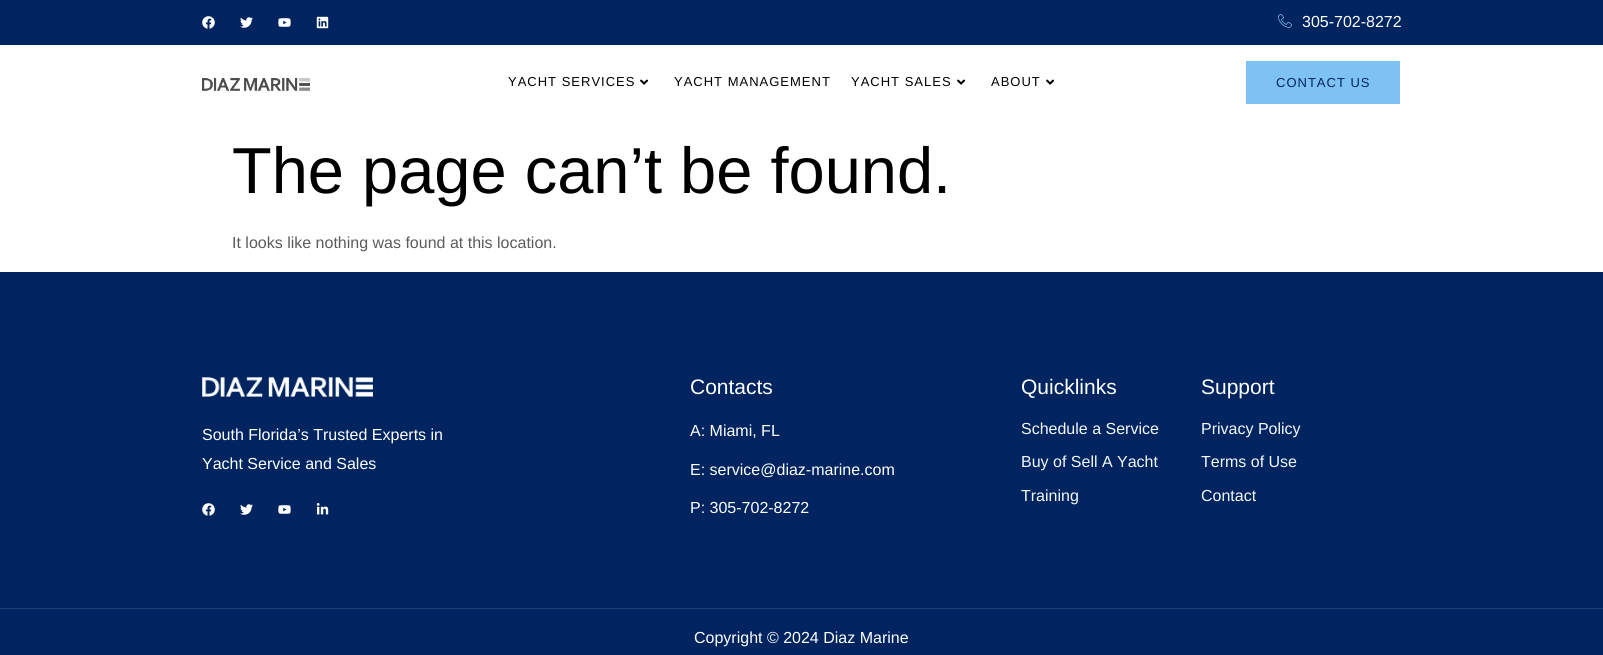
#include <cairo.h>
#include <math.h>
#include <stddef.h>

typedef struct { const char *family; double size; int italic, bold; unsigned color; } style_t;
static cairo_t *ctx;

static void ink(unsigned color) {
    cairo_set_source_rgb(ctx, (color >> 16) / 255.0, (color >> 8 & 255) / 255.0, (color & 255) / 255.0);
}

static void write(double x, double y, const char *s, const style_t *st) {
    cairo_select_font_face(ctx, st->family, st->italic ? CAIRO_FONT_SLANT_ITALIC : CAIRO_FONT_SLANT_NORMAL,
        st->bold ? CAIRO_FONT_WEIGHT_BOLD : CAIRO_FONT_WEIGHT_NORMAL);
    cairo_set_font_size(ctx, st->size);
    ink(st->color);
    cairo_move_to(ctx, x, y);
    cairo_show_text(ctx, s);
}

static void write_spaced(double x, double y, const char *s, double letter, double word) {
    cairo_move_to(ctx, x, y);
    while (*s) {
        char ch[5] = {0};
        int n = 0;
        do ch[n++] = *s++; while ((*s & 0xC0) == 0x80);
        cairo_show_text(ctx, ch);
        cairo_rel_move_to(ctx, letter + word * (*ch == ' '), 0);
    }
}

static void block(double x, double y, double w, double h, unsigned color) {
    ink(color);
    cairo_rectangle(ctx, x, y, w, h);
    cairo_fill(ctx);
}

static void paste(const char *path, double x, double y, double w, double h) {
    cairo_surface_t *image = cairo_image_surface_create_from_png(path);
    cairo_save(ctx);
    cairo_set_source_surface(ctx, image, x, y);
    cairo_rectangle(ctx, x, y, w, h);
    cairo_fill(ctx);
    cairo_restore(ctx);
    cairo_surface_destroy(image);
}

static const style_t s1 = {"Liberation Sans", 16, 0, 0, 0xffffff};
static const style_t s2 = {"Liberation Sans", 65, 0, 0, 0x000000};
static const style_t s3 = {"Liberation Sans", 16, 0, 0, 0x5b5b5b};
static const style_t s4 = {"Liberation Sans", 21, 0, 0, 0xffffff};
static const style_t s5 = {"Liberation Sans", 16, 0, 0, 0xf4f8fb};

int main(void) {
    cairo_surface_t *surface = cairo_image_surface_create(CAIRO_FORMAT_RGB24, 1603, 655);
    ctx = cairo_create(surface);
    cairo_font_options_t *options = cairo_font_options_create();
    cairo_font_options_set_hint_metrics(options, CAIRO_HINT_METRICS_OFF);
    cairo_font_options_set_hint_style(options, CAIRO_HINT_STYLE_NONE);
    cairo_set_font_options(ctx, options);
    cairo_set_miter_limit(ctx, 4);
    ink(0xffffff);
    cairo_paint(ctx);
    block(0, 0, 1603, 45, 0x00245f);
    paste("pic1.png", 202, 16, 13, 13);
    paste("pic2.png", 240, 17, 13, 11);
    paste("pic3.png", 278, 18, 13, 9);
    paste("pic4.png", 316, 16, 13, 13);
    paste("pic5.png", 1278, 13, 14, 15);
    write(1302, 27, "305-702-8272", &s1);
    paste("pic6.png", 202, 78, 108, 13);
    cairo_set_font_size(ctx, 13);
    ink(0x000000);
    write_spaced(508, 86, "YACHT SERVICES", 1, 0);
    paste("pic7.png", 640, 79, 9, 6);
    write_spaced(674, 86, "YACHT MANAGEMENT", 1, 0);
    write_spaced(851, 86, "YACHT SALES", 1, 0);
    paste("pic7.png", 957, 79, 9, 6);
    write_spaced(991, 86, "ABOUT", 1, 0);
    paste("pic7.png", 1046, 79, 9, 6);
    block(1246, 61, 154, 43, 0x7ec1f3);
    ink(0x00245f);
    write_spaced(1276, 87, "CONTACT US", 1, 0);
    write(232, 193, "The page can’t be found.", &s2);
    write(232, 248, "It looks like nothing was found at this location.", &s3);
    block(0, 272, 1603, 336, 0x00245f);
    paste("pic8.png", 202, 377, 171, 20);
    write(202, 440, "South Florida’s Trusted Experts in", &s1);
    write(202, 469, "Yacht Service and Sales", &s1);
    paste("pic1.png", 202, 503, 13, 13);
    paste("pic2.png", 240, 504, 13, 11);
    paste("pic3.png", 278, 505, 13, 9);
    paste("pic9.png", 316, 503, 13, 12);
    write(690, 394, "Contacts", &s4);
    write(690, 436, "A: Miami, FL", &s1);
    write(690, 475, "E: service@diaz-marine.com", &s1);
    write(690, 513, "P: 305-702-8272", &s1);
    write(1021, 394, "Quicklinks", &s4);
    write(1021, 434, "Schedule a Service", &s5);
    write(1021, 467, "Buy of Sell A Yacht", &s5);
    write(1021, 501, "Training", &s5);
    write(1201, 394, "Support", &s4);
    write(1201, 434, "Privacy Policy", &s5);
    write(1201, 467, "Terms of Use", &s5);
    write(1201, 501, "Contact", &s5);
    block(0, 609, 1603, 46, 0x00245f);
    block(0, 608, 1603, 1, 0x1f3e72);
    write(694, 643, "Copyright © 2024 Diaz Marine", &s1);
    cairo_surface_write_to_png(surface, "screenshot.png");
    cairo_font_options_destroy(options);
    cairo_destroy(ctx);
    cairo_surface_destroy(surface);
    return 0;
}
